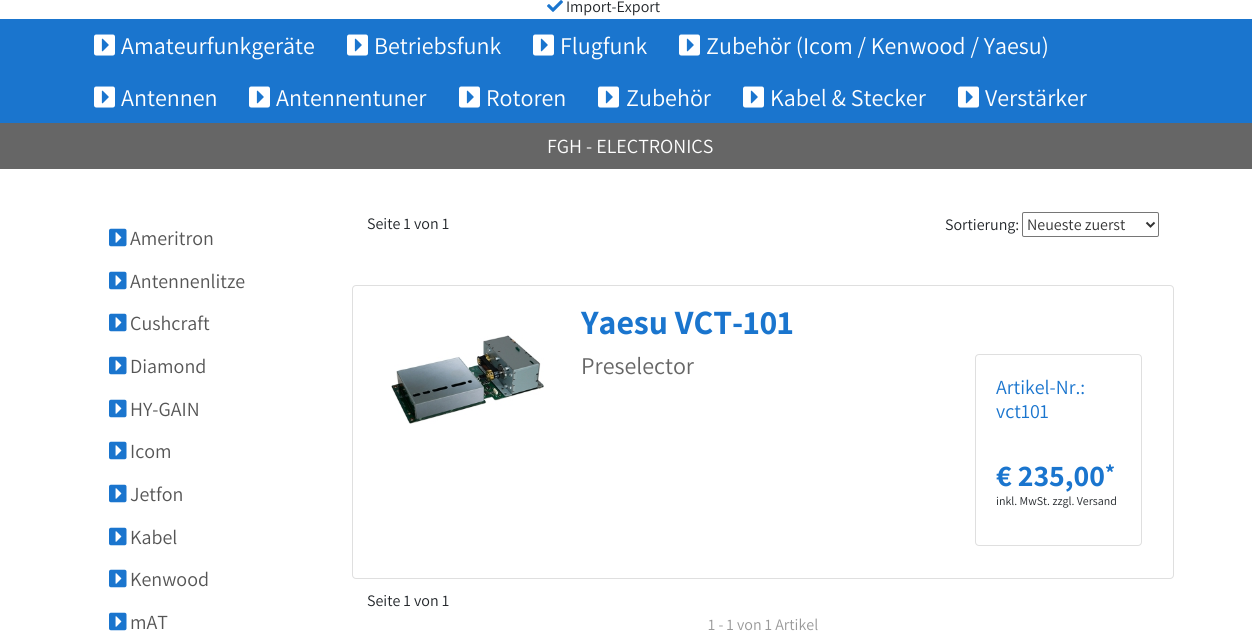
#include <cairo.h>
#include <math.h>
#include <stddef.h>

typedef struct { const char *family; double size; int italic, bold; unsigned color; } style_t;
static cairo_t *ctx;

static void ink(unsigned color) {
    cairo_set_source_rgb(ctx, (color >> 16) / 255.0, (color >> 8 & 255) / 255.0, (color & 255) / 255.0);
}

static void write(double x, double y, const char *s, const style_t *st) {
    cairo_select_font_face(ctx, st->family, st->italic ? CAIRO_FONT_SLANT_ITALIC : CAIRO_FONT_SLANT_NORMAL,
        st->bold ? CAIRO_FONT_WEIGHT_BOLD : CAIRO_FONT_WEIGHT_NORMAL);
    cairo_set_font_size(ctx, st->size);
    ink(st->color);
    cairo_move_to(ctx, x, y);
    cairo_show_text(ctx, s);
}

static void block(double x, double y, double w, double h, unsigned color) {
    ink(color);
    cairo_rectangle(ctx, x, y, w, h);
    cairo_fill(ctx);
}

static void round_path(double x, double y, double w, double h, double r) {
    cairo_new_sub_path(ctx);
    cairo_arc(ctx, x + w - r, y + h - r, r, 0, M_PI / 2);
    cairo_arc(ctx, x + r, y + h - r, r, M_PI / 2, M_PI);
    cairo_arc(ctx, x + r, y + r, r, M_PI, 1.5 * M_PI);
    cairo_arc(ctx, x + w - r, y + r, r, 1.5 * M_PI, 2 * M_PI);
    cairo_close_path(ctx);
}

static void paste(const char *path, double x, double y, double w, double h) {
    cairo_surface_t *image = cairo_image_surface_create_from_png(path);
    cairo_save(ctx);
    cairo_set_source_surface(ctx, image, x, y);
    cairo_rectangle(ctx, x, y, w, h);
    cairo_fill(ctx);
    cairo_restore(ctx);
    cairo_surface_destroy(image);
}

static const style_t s1 = {"Assistant", 16, 0, 0, 0x212529};
static const style_t s2 = {"Assistant", 24, 0, 0, 0xffffff};
static const style_t s3 = {"Assistant", 20, 0, 0, 0xffffff};
static const style_t s4 = {"Assistant", 20, 0, 0, 0x555555};
static const style_t s5 = {"Assistant", 16, 0, 0, 0x333333};
static const style_t s6 = {"Assistant", 34, 0, 1, 0x1a75ce};
static const style_t s7 = {"Assistant", 24, 0, 0, 0x666666};
static const style_t s8 = {"Assistant", 20, 0, 0, 0x1a75ce};
static const style_t s9 = {"Assistant", 30, 0, 1, 0x1a75ce};
static const style_t s10 = {"Assistant", 22, 0, 1, 0x1a75ce};
static const style_t s11 = {"Assistant", 12, 0, 0, 0x212529};
static const style_t s12 = {"Assistant", 16, 0, 0, 0x999999};

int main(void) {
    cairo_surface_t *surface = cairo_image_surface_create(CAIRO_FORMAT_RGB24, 1252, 643);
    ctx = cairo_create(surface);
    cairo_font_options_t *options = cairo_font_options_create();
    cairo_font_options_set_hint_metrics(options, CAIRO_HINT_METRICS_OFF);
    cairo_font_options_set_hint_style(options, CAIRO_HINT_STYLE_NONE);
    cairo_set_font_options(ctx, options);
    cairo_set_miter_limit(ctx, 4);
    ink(0xffffff);
    cairo_paint(ctx);
    paste("pic1.png", 547, 0, 16, 12);
    write(566, 12, "Import-Export", &s1);
    block(0, 19, 1252, 104, 0x1a75ce);
    paste("pic2.png", 94, 34, 21, 22);
    write(121, 54, "Amateurfunkgeräte", &s2);
    paste("pic2.png", 347, 34, 21, 22);
    write(374, 54, "Betriebsfunk", &s2);
    paste("pic2.png", 533, 34, 21, 22);
    write(560, 54, "Flugfunk", &s2);
    paste("pic2.png", 679, 34, 21, 22);
    write(706, 54, "Zubehör (Icom / Kenwood / Yaesu)", &s2);
    paste("pic2.png", 94, 86, 21, 22);
    write(121, 106, "Antennen", &s2);
    paste("pic2.png", 249, 86, 21, 22);
    write(276, 106, "Antennentuner", &s2);
    paste("pic2.png", 459, 86, 21, 22);
    write(486, 106, "Rotoren", &s2);
    paste("pic2.png", 598, 86, 21, 22);
    write(626, 106, "Zubehör", &s2);
    paste("pic2.png", 743, 86, 21, 22);
    write(770, 106, "Kabel & Stecker", &s2);
    paste("pic2.png", 958, 86, 21, 22);
    write(985, 106, "Verstärker", &s2);
    block(0, 123, 1252, 46, 0x666666);
    write(547, 153, "FGH - ELECTRONICS", &s3);
    paste("pic3.png", 109, 228, 18, 19);
    write(130, 245, "Ameritron", &s4);
    paste("pic3.png", 109, 271, 18, 19);
    write(130, 288, "Antennenlitze", &s4);
    paste("pic3.png", 109, 313, 18, 19);
    write(130, 330, "Cushcraft", &s4);
    paste("pic3.png", 109, 356, 18, 19);
    write(130, 373, "Diamond", &s4);
    paste("pic3.png", 109, 399, 18, 19);
    write(130, 416, "HY-GAIN", &s4);
    paste("pic3.png", 109, 441, 18, 19);
    write(130, 458, "Icom", &s4);
    paste("pic3.png", 109, 484, 18, 19);
    write(130, 501, "Jetfon", &s4);
    paste("pic3.png", 109, 527, 18, 19);
    write(130, 544, "Kabel", &s4);
    paste("pic3.png", 109, 569, 18, 19);
    write(130, 586, "Kenwood", &s4);
    paste("pic3.png", 109, 612, 18, 19);
    write(130, 629, "mAT", &s4);
    write(367, 229, "Seite 1 von 1", &s1);
    write(945, 230, "Sortierung:", &s1);
    round_path(1022.5, 212.5, 136, 24, 1.5);
    ink(0x767676);
    cairo_set_line_width(ctx, 1);
    cairo_stroke(ctx);
    cairo_new_path(ctx);
    cairo_move_to(ctx, 1146.5, 222.5);
    cairo_line_to(ctx, 1150.5, 226.5);
    cairo_line_to(ctx, 1154.5, 222.5);
    ink(0x333333);
    cairo_set_line_width(ctx, 2);
    cairo_stroke(ctx);
    write(1027, 230, "Neueste zuerst", &s5);
    round_path(352.5, 285.5, 821, 293, 3.5);
    ink(0xdfdfdf);
    cairo_set_line_width(ctx, 1);
    cairo_stroke(ctx);
    paste("pic4.png", 391, 335, 153, 89);
    write(581, 334, "Yaesu VCT-101", &s6);
    write(581, 374, "Preselector", &s7);
    round_path(975.5, 354.5, 166, 191, 3.5);
    ink(0xdfdfdf);
    cairo_stroke(ctx);
    write(996, 394, "Artikel-Nr.:", &s8);
    write(996, 418, "vct101", &s8);
    write(996, 486, "€ 235,00", &s9);
    write(1105, 480, "*", &s10);
    write(996, 505, "inkl. MwSt. zzgl. Versand", &s11);
    write(367, 606, "Seite 1 von 1", &s1);
    write(708, 630, "1 - 1 von 1 Artikel", &s12);
    cairo_surface_write_to_png(surface, "screenshot.png");
    cairo_font_options_destroy(options);
    cairo_destroy(ctx);
    cairo_surface_destroy(surface);
    return 0;
}
